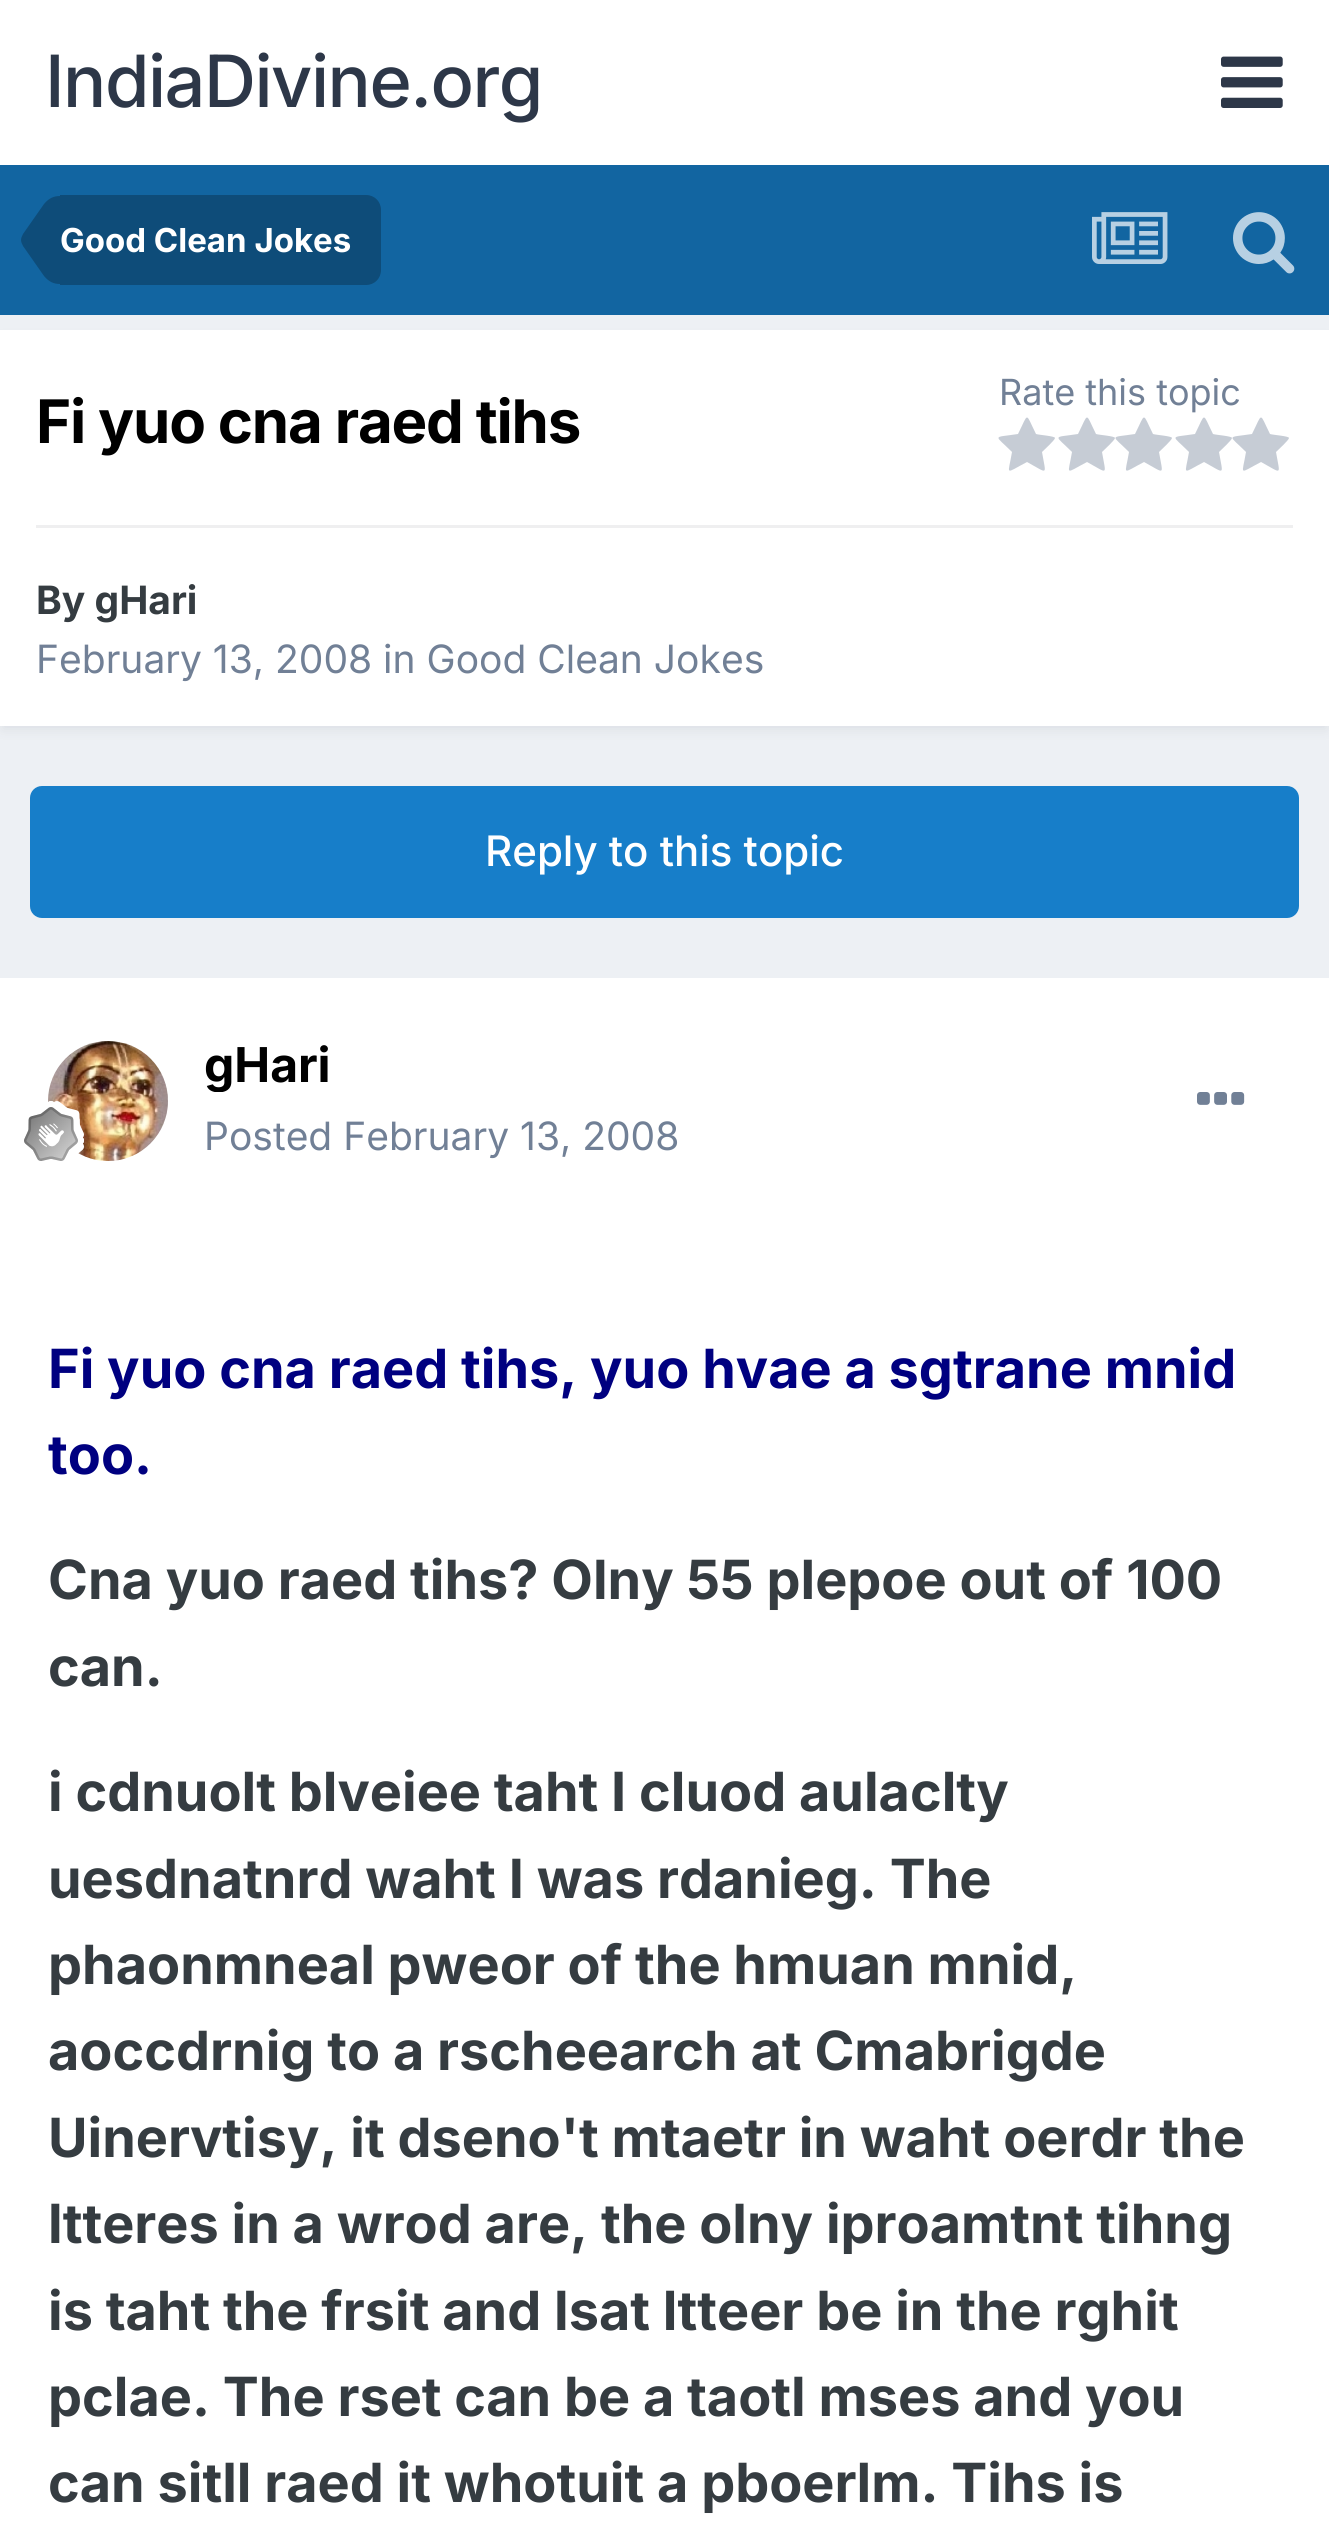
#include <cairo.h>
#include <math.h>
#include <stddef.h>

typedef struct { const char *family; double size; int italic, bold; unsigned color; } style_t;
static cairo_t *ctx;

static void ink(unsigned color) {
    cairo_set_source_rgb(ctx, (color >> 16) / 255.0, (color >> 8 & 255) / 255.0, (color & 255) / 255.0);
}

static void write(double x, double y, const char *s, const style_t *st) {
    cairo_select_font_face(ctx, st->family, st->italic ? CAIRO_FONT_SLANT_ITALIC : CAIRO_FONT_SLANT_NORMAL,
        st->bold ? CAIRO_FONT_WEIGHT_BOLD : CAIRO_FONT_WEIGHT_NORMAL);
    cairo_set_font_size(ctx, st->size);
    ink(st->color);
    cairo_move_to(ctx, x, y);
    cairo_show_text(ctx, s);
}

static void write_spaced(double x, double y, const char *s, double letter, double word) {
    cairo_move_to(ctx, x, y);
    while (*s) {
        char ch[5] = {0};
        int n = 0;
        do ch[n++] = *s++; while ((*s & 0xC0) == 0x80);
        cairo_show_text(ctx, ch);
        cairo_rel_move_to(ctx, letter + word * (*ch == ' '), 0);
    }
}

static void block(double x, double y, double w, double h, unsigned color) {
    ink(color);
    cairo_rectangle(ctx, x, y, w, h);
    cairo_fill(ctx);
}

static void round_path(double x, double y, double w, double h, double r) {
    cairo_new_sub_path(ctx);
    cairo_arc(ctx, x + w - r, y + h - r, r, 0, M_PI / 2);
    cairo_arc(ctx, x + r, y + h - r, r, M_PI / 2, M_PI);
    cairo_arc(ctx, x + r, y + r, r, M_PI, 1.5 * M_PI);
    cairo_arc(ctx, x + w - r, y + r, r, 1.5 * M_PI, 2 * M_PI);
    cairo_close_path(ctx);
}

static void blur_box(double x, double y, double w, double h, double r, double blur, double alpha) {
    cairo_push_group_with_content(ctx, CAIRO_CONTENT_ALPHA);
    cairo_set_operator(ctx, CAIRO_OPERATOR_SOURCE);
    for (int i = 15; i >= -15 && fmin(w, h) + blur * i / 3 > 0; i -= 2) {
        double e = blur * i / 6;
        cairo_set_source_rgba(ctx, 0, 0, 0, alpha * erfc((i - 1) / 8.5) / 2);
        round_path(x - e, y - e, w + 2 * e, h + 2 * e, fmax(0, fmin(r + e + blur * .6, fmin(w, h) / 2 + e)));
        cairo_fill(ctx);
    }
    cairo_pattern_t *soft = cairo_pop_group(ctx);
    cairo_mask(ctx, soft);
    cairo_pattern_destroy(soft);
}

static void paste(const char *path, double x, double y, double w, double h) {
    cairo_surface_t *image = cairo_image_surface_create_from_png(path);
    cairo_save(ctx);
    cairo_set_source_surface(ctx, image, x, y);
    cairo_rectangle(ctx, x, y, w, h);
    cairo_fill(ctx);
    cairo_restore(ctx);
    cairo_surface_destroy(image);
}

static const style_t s1 = {"Inter", 33, 0, 1, 0xffffff};
static const style_t s2 = {"Inter", 36, 0, 0, 0x718096};
static const style_t s3 = {"Inter", 39, 0, 1, 0x353c41};
static const style_t s4 = {"Inter", 39, 0, 0, 0x718096};
static const style_t s5 = {"Inter Medium", 42, 0, 0, 0xffffff};
static const style_t s6 = {"Inter", 48, 0, 1, 0x000000};
static const style_t s7 = {"Inter", 54, 0, 1, 0x000080};
static const style_t s8 = {"Inter", 54, 0, 1, 0x353c41};

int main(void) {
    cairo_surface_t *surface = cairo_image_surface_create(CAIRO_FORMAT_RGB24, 1329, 2546);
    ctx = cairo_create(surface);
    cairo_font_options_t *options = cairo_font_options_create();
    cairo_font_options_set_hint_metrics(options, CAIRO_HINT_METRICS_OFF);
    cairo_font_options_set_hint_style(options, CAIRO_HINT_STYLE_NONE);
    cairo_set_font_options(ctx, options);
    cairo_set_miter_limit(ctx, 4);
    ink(0xedf0f4);
    cairo_paint(ctx);
    block(0, 0, 1329, 165, 0xffffff);
    cairo_select_font_face(ctx, "Inter Medium", CAIRO_FONT_SLANT_NORMAL, CAIRO_FONT_WEIGHT_NORMAL);
    cairo_set_font_size(ctx, 72);
    ink(0x2d3748);
    write_spaced(45, 107, "IndiaDivine.org", -1.5, 0);
    paste("pic1.png", 1221, 56, 62, 52);
    block(0, 165, 1329, 150, 0x1265a1);
    ink(0x0e4c79);
    cairo_new_path(ctx);
    cairo_move_to(ctx, 60, 195);
    cairo_line_to(ctx, 366, 195);
    cairo_curve_to(ctx, 374.5, 195, 381, 201.5, 381, 210);
    cairo_line_to(ctx, 381, 270);
    cairo_curve_to(ctx, 381, 278.5, 374.5, 285, 366, 285);
    cairo_line_to(ctx, 60, 285);
    cairo_close_path(ctx);
    cairo_fill(ctx);
    cairo_new_path(ctx);
    cairo_move_to(ctx, 60, 240);
    cairo_line_to(ctx, 60, 284);
    cairo_curve_to(ctx, 54, 284, 49, 282, 44, 276);
    cairo_line_to(ctx, 23, 246);
    cairo_curve_to(ctx, 22, 244, 21, 242, 21, 240);
    cairo_close_path(ctx);
    cairo_fill(ctx);
    cairo_new_path(ctx);
    cairo_move_to(ctx, 60, 240);
    cairo_line_to(ctx, 21, 240);
    cairo_curve_to(ctx, 21, 238, 22, 236, 23, 234);
    cairo_line_to(ctx, 44, 204);
    cairo_curve_to(ctx, 49, 198, 54, 196, 60, 196);
    cairo_close_path(ctx);
    cairo_fill(ctx);
    write(60, 252, "Good Clean Jokes", &s1);
    paste("pic2.png", 1092, 212, 76, 52);
    paste("pic3.png", 1233, 212, 62, 62);
    ink(0x2d3748);
    blur_box(3, 339, 1323, 390, 0, 6, 0.1);
    block(0, 330, 1329, 396, 0xffffff);
    cairo_set_font_size(ctx, 60);
    ink(0x000000);
    write_spaced(36, 443, "Fi yuo cna raed tihs", -1.2, 0);
    write(999, 405, "Rate this topic", &s2);
    ink(0xc6ccd5);
    cairo_new_path(ctx);
    cairo_move_to(ctx, 1055, 438);
    cairo_curve_to(ctx, 1055, 440, 1044, 450, 1042, 452);
    cairo_curve_to(ctx, 1046, 476, 1049, 474, 1027, 462);
    cairo_curve_to(ctx, 1004, 474, 1008, 476, 1012, 452);
    cairo_curve_to(ctx, 994, 434, 992, 438, 1018, 434);
    cairo_curve_to(ctx, 1029, 412, 1025, 412, 1036, 434);
    cairo_curve_to(ctx, 1039, 435, 1055, 436, 1055, 438);
    cairo_close_path(ctx);
    cairo_fill(ctx);
    cairo_new_path(ctx);
    cairo_move_to(ctx, 1115, 438);
    cairo_curve_to(ctx, 1115, 440, 1104, 450, 1102, 452);
    cairo_curve_to(ctx, 1106, 476, 1109, 474, 1087, 462);
    cairo_curve_to(ctx, 1064, 474, 1068, 476, 1072, 452);
    cairo_curve_to(ctx, 1054, 434, 1052, 438, 1078, 434);
    cairo_curve_to(ctx, 1089, 412, 1085, 412, 1096, 434);
    cairo_curve_to(ctx, 1099, 435, 1115, 436, 1115, 438);
    cairo_close_path(ctx);
    cairo_fill(ctx);
    cairo_new_path(ctx);
    cairo_move_to(ctx, 1172, 438);
    cairo_curve_to(ctx, 1172, 440, 1161, 450, 1159, 452);
    cairo_curve_to(ctx, 1163, 476, 1166, 474, 1144, 462);
    cairo_curve_to(ctx, 1121, 474, 1125, 476, 1129, 452);
    cairo_curve_to(ctx, 1111, 434, 1109, 438, 1135, 434);
    cairo_curve_to(ctx, 1146, 412, 1142, 412, 1153, 434);
    cairo_curve_to(ctx, 1156, 435, 1172, 436, 1172, 438);
    cairo_close_path(ctx);
    cairo_fill(ctx);
    cairo_new_path(ctx);
    cairo_move_to(ctx, 1232, 438);
    cairo_curve_to(ctx, 1232, 440, 1221, 450, 1219, 452);
    cairo_curve_to(ctx, 1223, 476, 1226, 474, 1204, 462);
    cairo_curve_to(ctx, 1181, 474, 1185, 476, 1189, 452);
    cairo_curve_to(ctx, 1171, 434, 1169, 438, 1195, 434);
    cairo_curve_to(ctx, 1206, 412, 1202, 412, 1213, 434);
    cairo_curve_to(ctx, 1216, 435, 1232, 436, 1232, 438);
    cairo_close_path(ctx);
    cairo_fill(ctx);
    cairo_new_path(ctx);
    cairo_move_to(ctx, 1289, 438);
    cairo_curve_to(ctx, 1289, 440, 1278, 450, 1276, 452);
    cairo_curve_to(ctx, 1280, 476, 1283, 474, 1261, 462);
    cairo_curve_to(ctx, 1238, 474, 1242, 476, 1246, 452);
    cairo_curve_to(ctx, 1228, 434, 1226, 438, 1252, 434);
    cairo_curve_to(ctx, 1263, 412, 1259, 412, 1270, 434);
    cairo_curve_to(ctx, 1273, 435, 1289, 436, 1289, 438);
    cairo_close_path(ctx);
    cairo_fill(ctx);
    block(36, 525, 1257, 3, 0xefeff0);
    write(36, 614, "By gHari", &s3);
    write(36, 673, "February 13, 2008 in Good Clean Jokes", &s4);
    ink(0x177ec9);
    round_path(30, 786, 1269, 132, 12);
    cairo_fill(ctx);
    write(485, 866, "Reply to this topic", &s5);
    block(0, 978, 1329, 1568, 0xffffff);
    paste("pic4.png", 48, 1041, 120, 120);
    paste("pic5.png", 24, 1101, 60, 60);
    cairo_save(ctx);
    cairo_rectangle(ctx, 204, 1038, 126, 54);
    cairo_clip(ctx);
    write(204, 1082, "gHari", &s6);
    cairo_restore(ctx);
    write(204, 1150, "Posted February 13, 2008", &s4);
    paste("pic6.png", 1197, 1092, 48, 13);
    write(48, 1388, "Fi yuo cna raed tihs, yuo hvae a sgtrane mnid", &s7);
    write(48, 1474, "too.", &s7);
    write(48, 1599, "Cna yuo raed tihs? Olny 55 plepoe out of 100", &s8);
    write(48, 1686, "can.", &s8);
    write(48, 1811, "i cdnuolt blveiee taht I cluod aulaclty", &s8);
    write(48, 1898, "uesdnatnrd waht I was rdanieg. The", &s8);
    write(48, 1984, "phaonmneal pweor of the hmuan mnid,", &s8);
    write(48, 2070, "aoccdrnig to a rscheearch at Cmabrigde", &s8);
    write(48, 2157, "Uinervtisy, it dseno't mtaetr in waht oerdr the", &s8);
    write(48, 2243, "ltteres in a wrod are, the olny iproamtnt tihng", &s8);
    write(48, 2330, "is taht the frsit and lsat ltteer be in the rghit", &s8);
    write(48, 2416, "pclae. The rset can be a taotl mses and you", &s8);
    write(48, 2502, "can sitll raed it whotuit a pboerlm. Tihs is", &s8);
    cairo_surface_write_to_png(surface, "screenshot.png");
    cairo_font_options_destroy(options);
    cairo_destroy(ctx);
    cairo_surface_destroy(surface);
    return 0;
}
